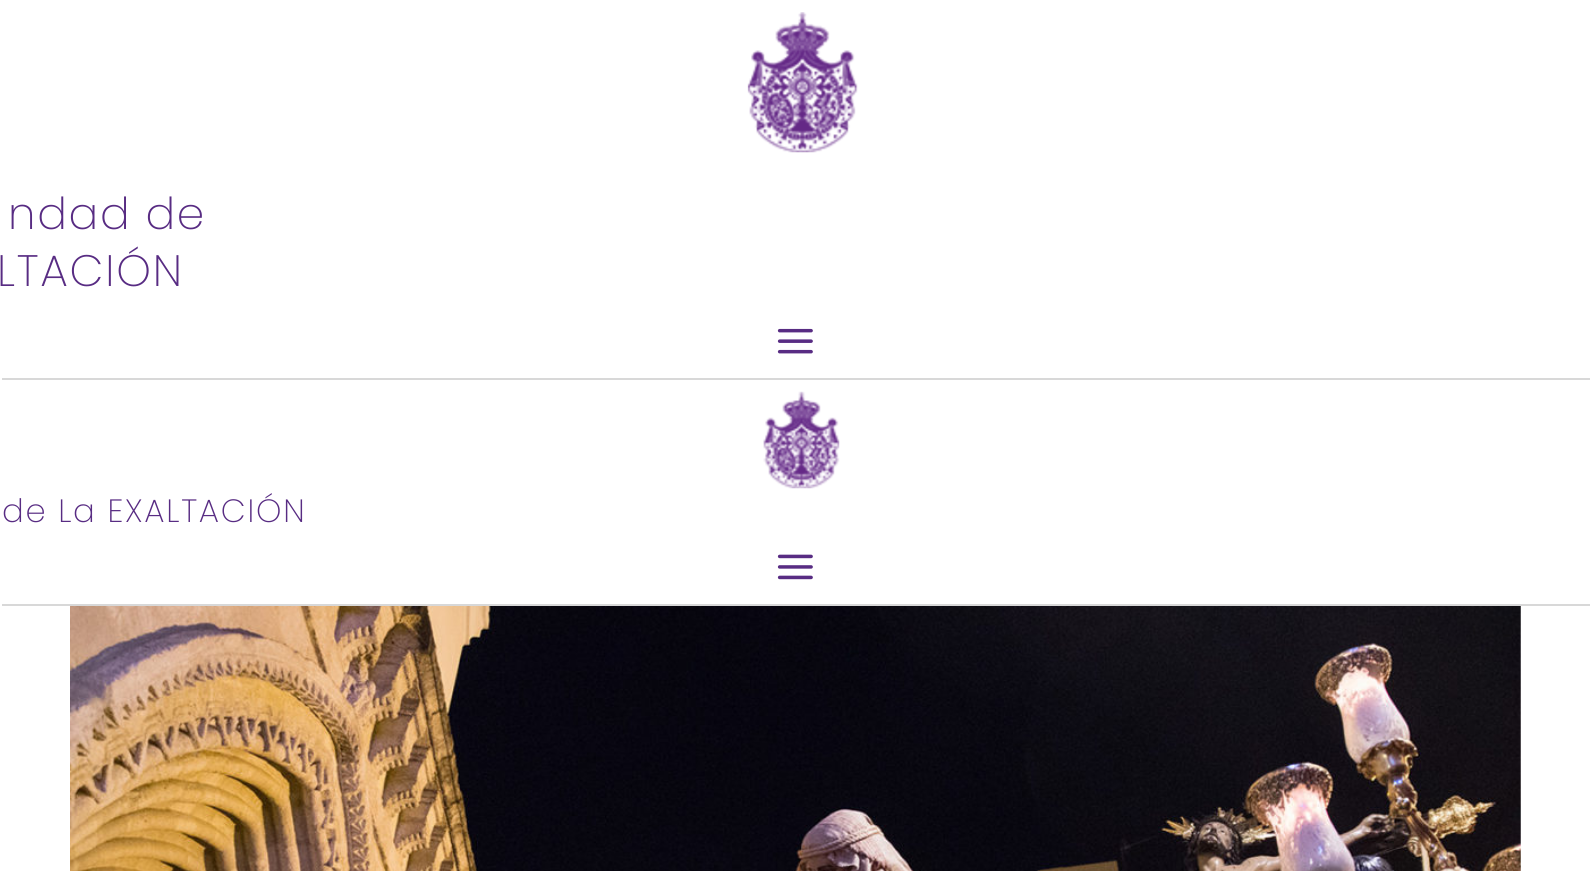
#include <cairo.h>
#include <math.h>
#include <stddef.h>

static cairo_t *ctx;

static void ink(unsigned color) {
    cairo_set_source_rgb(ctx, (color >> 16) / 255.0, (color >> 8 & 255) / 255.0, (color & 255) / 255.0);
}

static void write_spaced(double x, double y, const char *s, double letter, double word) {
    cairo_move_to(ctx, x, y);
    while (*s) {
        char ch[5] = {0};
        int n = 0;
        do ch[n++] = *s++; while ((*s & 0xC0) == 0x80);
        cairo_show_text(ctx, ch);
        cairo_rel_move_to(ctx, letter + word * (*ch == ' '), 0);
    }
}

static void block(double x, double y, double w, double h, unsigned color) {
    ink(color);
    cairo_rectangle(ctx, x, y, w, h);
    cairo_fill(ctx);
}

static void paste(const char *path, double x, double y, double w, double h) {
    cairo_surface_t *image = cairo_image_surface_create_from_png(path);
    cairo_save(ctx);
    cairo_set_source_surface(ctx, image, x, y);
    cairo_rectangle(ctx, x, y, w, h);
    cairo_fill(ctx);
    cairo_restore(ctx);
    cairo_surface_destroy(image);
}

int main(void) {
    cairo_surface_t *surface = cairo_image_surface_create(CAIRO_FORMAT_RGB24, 1590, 871);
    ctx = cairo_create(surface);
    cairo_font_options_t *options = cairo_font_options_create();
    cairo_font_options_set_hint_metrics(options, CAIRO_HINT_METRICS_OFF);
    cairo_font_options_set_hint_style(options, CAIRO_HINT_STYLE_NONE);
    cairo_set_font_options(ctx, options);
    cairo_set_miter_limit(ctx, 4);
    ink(0xffffff);
    cairo_paint(ctx);
    block(2, 378, 1588, 2, 0xd8d8d8);
    paste("pic1.png", 747, 12, 111, 141);
    cairo_select_font_face(ctx, "Poppins ExtraLight", CAIRO_FONT_SLANT_NORMAL, CAIRO_FONT_WEIGHT_NORMAL);
    cairo_set_font_size(ctx, 44);
    ink(0x582c83);
    write_spaced(8, 229, "ndad de", 1.75, 0);
    write_spaced(-3, 286, "LTACIÓN", 1.75, 0);
    paste("pic2.png", 777, 328, 36, 26);
    block(2, 604, 1588, 2, 0xd8d8d8);
    paste("pic3.png", 763, 391, 77, 98);
    cairo_set_font_size(ctx, 32.25);
    ink(0x582c83);
    write_spaced(2, 522, "de La EXALTACIÓN", 1.75, 0);
    paste("pic4.png", 777, 554, 36, 26);
    paste("pic5.png", 70, 606, 1451, 265);
    cairo_surface_write_to_png(surface, "screenshot.png");
    cairo_font_options_destroy(options);
    cairo_destroy(ctx);
    cairo_surface_destroy(surface);
    return 0;
}
